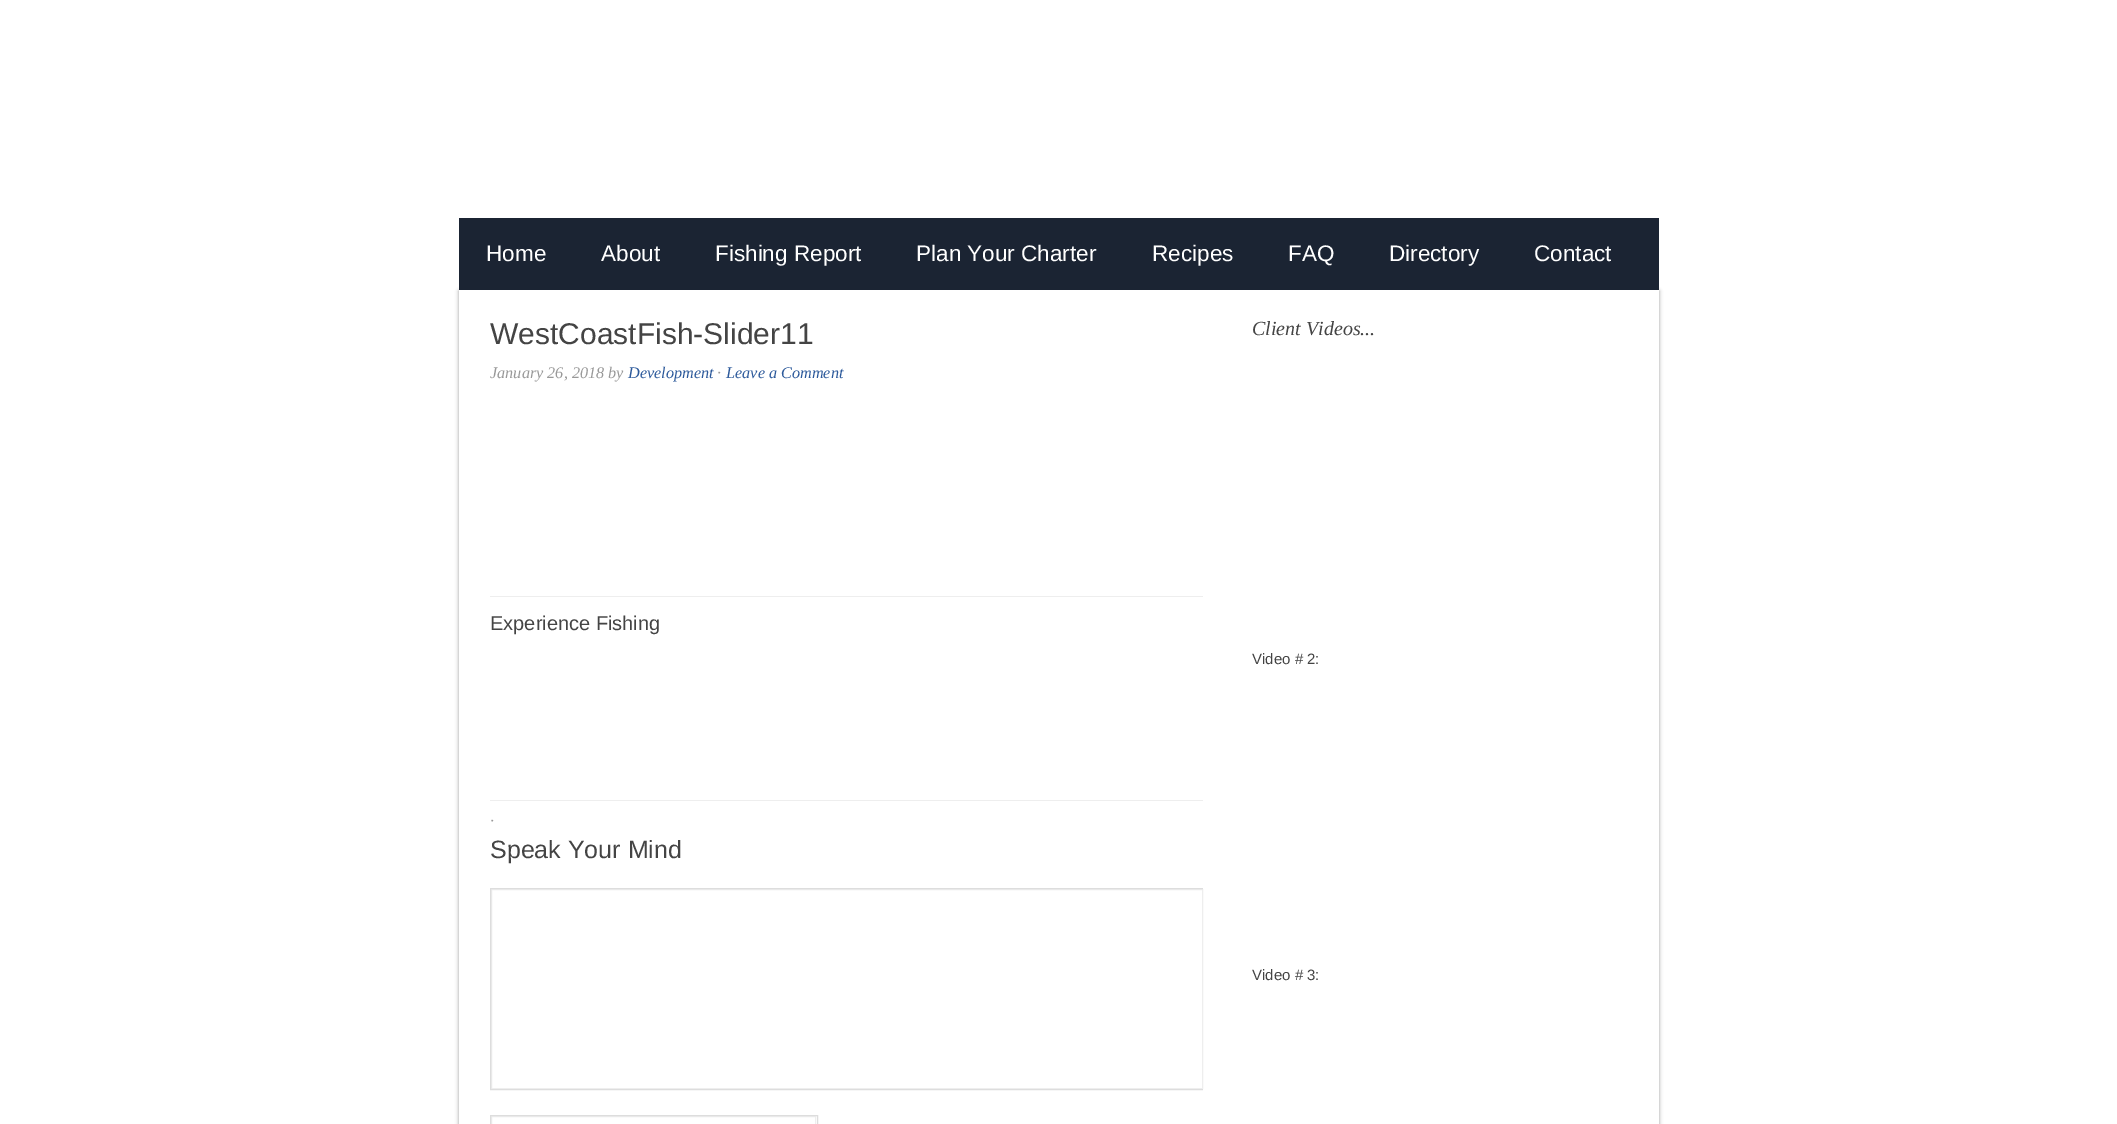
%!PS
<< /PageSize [2117 1124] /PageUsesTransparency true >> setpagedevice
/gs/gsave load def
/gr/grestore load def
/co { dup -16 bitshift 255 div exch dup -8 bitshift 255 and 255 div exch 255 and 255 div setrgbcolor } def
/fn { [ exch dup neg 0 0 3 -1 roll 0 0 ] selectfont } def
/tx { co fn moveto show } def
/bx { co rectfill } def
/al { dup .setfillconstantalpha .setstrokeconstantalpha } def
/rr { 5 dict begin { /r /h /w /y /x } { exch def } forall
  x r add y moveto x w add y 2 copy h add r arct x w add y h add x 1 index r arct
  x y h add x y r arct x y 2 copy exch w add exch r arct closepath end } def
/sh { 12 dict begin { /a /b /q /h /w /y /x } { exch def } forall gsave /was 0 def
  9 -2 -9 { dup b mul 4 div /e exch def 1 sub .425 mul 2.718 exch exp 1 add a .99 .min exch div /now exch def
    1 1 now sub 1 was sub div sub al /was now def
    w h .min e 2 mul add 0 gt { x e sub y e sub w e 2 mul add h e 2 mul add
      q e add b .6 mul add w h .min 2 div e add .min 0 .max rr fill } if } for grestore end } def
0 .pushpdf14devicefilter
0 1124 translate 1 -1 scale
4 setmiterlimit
0 0 2117 1124 16#FFFFFF bx
16#999999 co
459 291 1200 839 0 2 1 sh
459 218 1200 72 16#1B2433 bx
459 290 1200 834 16#FFFFFF bx
490 596 713 1 16#EEEEEE bx
490 800 713 1 16#EEEEEE bx
491.5 889.5 711 199 rectstroke
gs
490 835 713 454 rectclip
16#DDDDDD co
490.5 888.5 713 201 rectstroke
gr
491.5 1116.5 324 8 rectstroke
16#DDDDDD co
490.5 1115.5 327 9 rectstroke
(Home) 486 261 /LiberationSans-Regular 22.5 16#FFFFFF tx
(About) 601 261 /LiberationSans-Regular 22.5 16#FFFFFF tx
(Fishing Report) 715 261 /LiberationSans-Regular 22.5 16#FFFFFF tx
(Plan Your Charter) 916 261 /LiberationSans-Regular 22.5 16#FFFFFF tx
(Recipes) 1152 261 /LiberationSans-Regular 22.5 16#FFFFFF tx
(FAQ) 1288 261 /LiberationSans-Regular 22.5 16#FFFFFF tx
(Directory) 1389 261 /LiberationSans-Regular 22.5 16#FFFFFF tx
(Contact) 1534 261 /LiberationSans-Regular 22.5 16#FFFFFF tx
(WestCoastFish-Slider11) 490 344 /LiberationSans-Regular 30 16#444444 tx
(January 26, 2018 by) 490 378 /LiberationSerif-Italic 16.25 16#999999 tx
(Development) 628 378 /LiberationSerif-Italic 16.25 16#2D5A9B tx
(·) 717 378 /LiberationSerif-Italic 16.25 16#999999 tx
(Leave a Comment) 726 378 /LiberationSerif-Italic 16.25 16#2D5A9B tx
(Experience Fishing) 490 630 /LiberationSans-Regular 20 16#444444 tx
(·) 490 826 /LiberationSerif-Italic 16.25 16#999999 tx
(Speak Your Mind) 490 858 /LiberationSans-Regular 25 16#444444 tx
(Client Videos...) 1252 335 /LiberationSerif-Italic 20 16#444444 tx
(Video # 2:) 1252 664 /LiberationSans-Regular 15 16#444444 tx
(Video # 3:) 1252 980 /LiberationSans-Regular 15 16#444444 tx
.poppdf14devicefilter showpage
